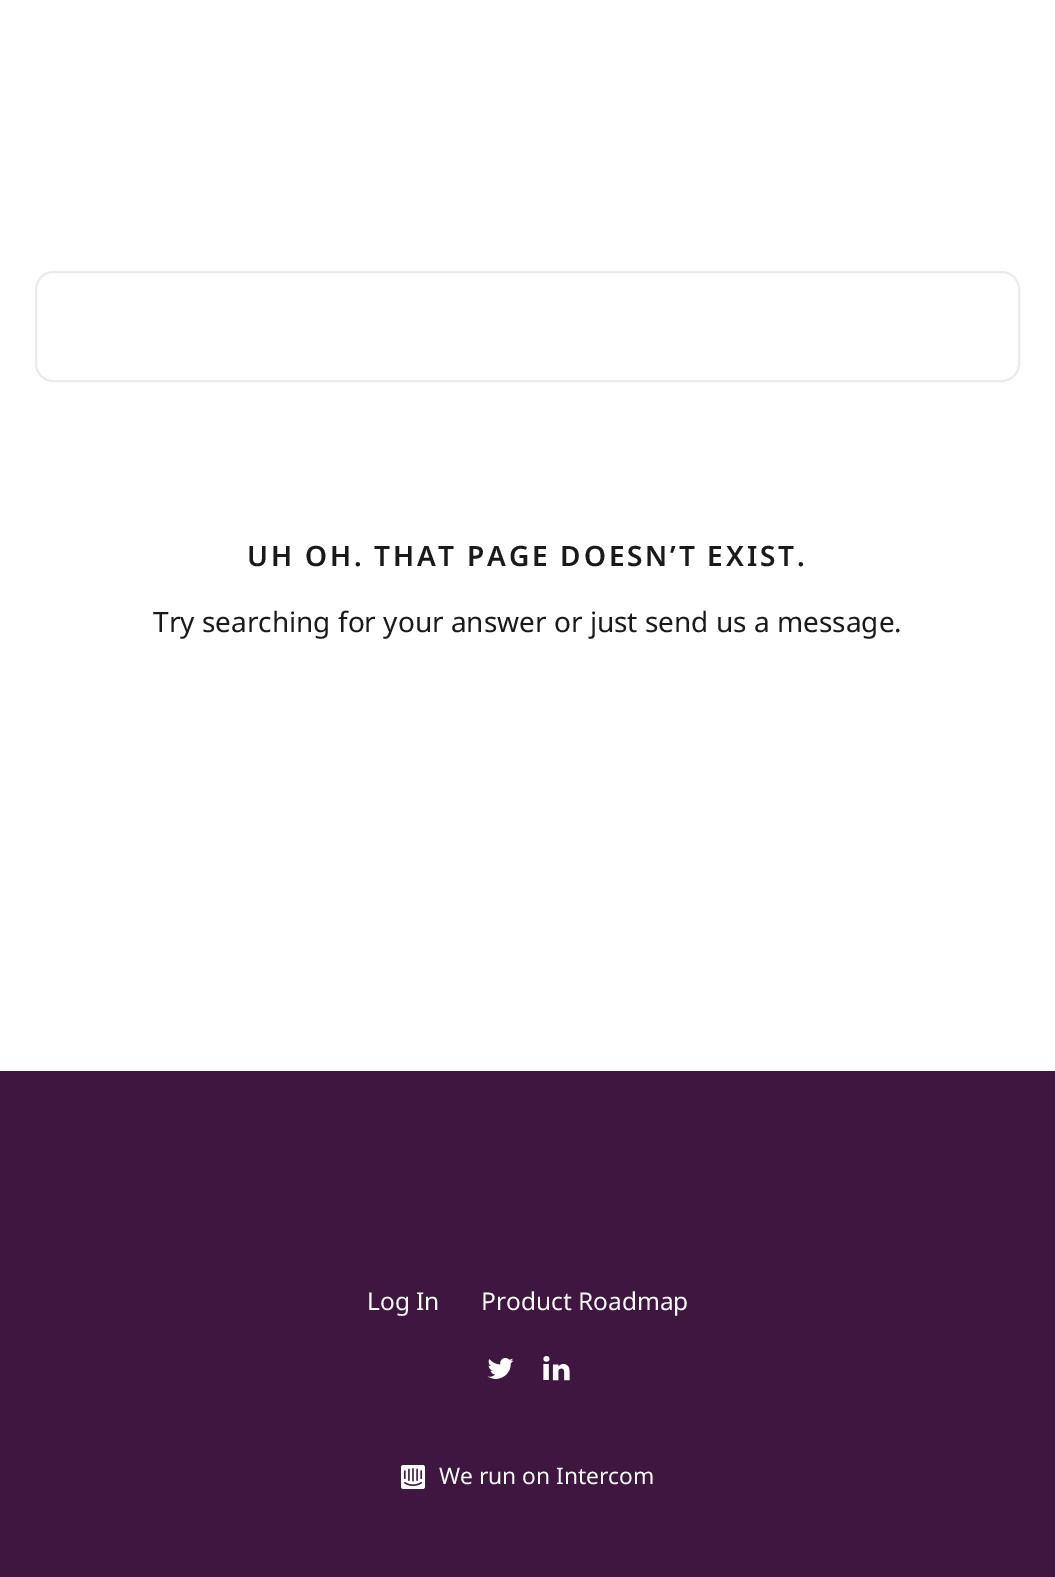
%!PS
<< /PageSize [1055 1577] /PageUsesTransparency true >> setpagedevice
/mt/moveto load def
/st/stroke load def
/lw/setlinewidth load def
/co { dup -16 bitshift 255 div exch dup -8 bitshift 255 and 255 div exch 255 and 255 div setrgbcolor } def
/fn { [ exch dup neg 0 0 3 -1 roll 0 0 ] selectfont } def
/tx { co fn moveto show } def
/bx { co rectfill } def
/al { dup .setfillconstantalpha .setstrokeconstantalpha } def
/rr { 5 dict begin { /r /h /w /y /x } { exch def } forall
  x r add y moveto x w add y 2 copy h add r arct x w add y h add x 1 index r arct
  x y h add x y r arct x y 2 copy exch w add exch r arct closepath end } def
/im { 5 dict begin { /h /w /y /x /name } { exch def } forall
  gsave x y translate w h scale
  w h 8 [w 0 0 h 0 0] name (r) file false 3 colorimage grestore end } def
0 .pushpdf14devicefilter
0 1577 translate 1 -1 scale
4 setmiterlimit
0 0 1055 1577 16#FFFFFF bx
0.08 al
16#000000 co
2 lw
36 272 983 109 17 rr st
1 al
0 1071 1055 506 16#3E163F bx
(media/1.raw) 487 1358 27 21 im
(media/2.raw) 543 1356 27 25 im
(media/3.raw) 401 1465 24 24 im
/NotoSans-SemiBold 28 fn
16#1A1A1A co
247 566 mt 2.8 0 (UH OH. THAT PAGE DOESN’T EXIST.) ashow
(Try searching for your answer or just send us a message.) 153 632 /NotoSans-Regular 28 16#1A1A1A tx
(Log In) 367 1310 /NotoSans-Regular 24.5 16#FFFFFF tx
(Product Roadmap) 481 1310 /NotoSans-Regular 24.5 16#FFFFFF tx
(We run on Intercom) 439 1484 /NotoSans-Regular 22.75 16#FFFFFF tx
.poppdf14devicefilter showpage
